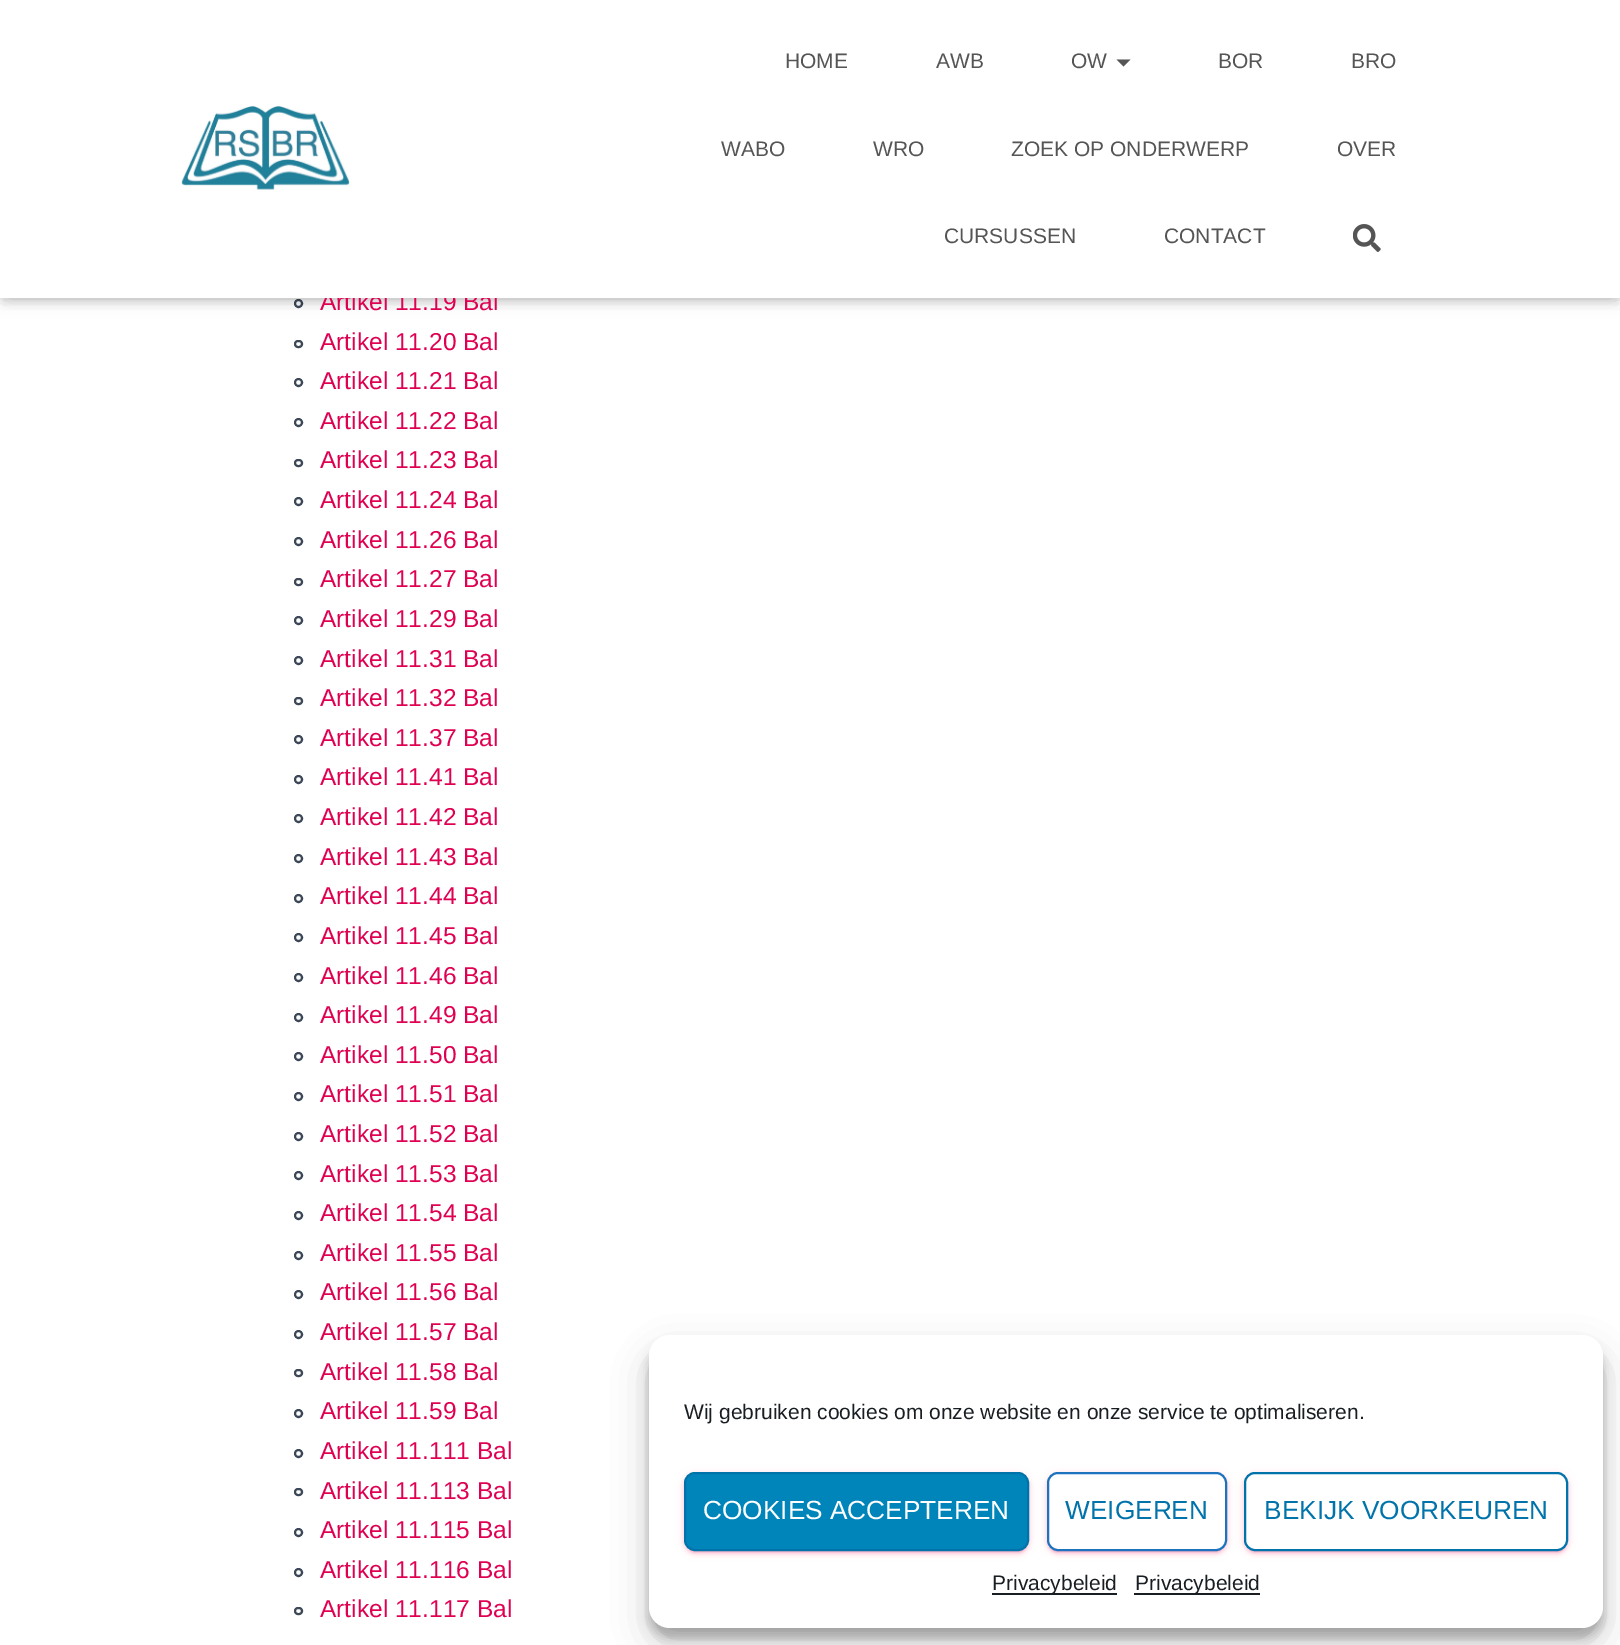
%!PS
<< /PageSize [1620 1645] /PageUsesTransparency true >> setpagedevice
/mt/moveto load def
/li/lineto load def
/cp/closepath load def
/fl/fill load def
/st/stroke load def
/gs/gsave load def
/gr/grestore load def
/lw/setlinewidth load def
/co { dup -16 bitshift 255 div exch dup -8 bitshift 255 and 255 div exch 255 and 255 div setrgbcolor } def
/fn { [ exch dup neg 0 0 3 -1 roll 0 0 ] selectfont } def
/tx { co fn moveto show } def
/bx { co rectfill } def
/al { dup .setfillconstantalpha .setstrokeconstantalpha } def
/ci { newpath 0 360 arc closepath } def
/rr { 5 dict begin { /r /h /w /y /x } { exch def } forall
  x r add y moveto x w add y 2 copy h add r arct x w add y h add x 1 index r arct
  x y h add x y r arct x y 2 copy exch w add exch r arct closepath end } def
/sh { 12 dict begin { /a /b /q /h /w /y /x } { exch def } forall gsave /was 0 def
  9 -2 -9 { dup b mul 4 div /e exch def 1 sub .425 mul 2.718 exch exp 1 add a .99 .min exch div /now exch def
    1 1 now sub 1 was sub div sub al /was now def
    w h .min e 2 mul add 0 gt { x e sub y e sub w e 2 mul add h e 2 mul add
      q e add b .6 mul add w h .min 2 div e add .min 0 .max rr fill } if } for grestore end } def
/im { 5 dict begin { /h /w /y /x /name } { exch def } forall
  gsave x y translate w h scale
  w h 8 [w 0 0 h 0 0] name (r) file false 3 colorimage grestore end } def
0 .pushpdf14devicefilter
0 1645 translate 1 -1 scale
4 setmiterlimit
0 0 1620 1645 16#FFFFFF bx
16#3C4858 co
2 lw
298.5 303.5 3.5 ci st
16#000000 co
4 11 1613 290 0 4.5 .1 sh
0 2 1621 297 0 9 .12 sh
11 12 1599 277 0 9 .42 sh
16#3C4858 co
295 341 7 6 3 rr st
298.5 382.5 3.5 ci st
298.5 422.5 3.5 ci st
295 460 7 6 3 rr st
298.5 501.5 3.5 ci st
298.5 541.5 3.5 ci st
295 579 7 6 3 rr st
298.5 620.5 3.5 ci st
298.5 660.5 3.5 ci st
295 698 7 6 3 rr st
298.5 739.5 3.5 ci st
298.5 779.5 3.5 ci st
298.5 818.5 3.5 ci st
298.5 858.5 3.5 ci st
298.5 898.5 3.5 ci st
298.5 937.5 3.5 ci st
298.5 977.5 3.5 ci st
298.5 1017.5 3.5 ci st
298.5 1056.5 3.5 ci st
298.5 1096.5 3.5 ci st
298.5 1136.5 3.5 ci st
298.5 1175.5 3.5 ci st
298.5 1215.5 3.5 ci st
298.5 1255.5 3.5 ci st
298.5 1294.5 3.5 ci st
298.5 1334.5 3.5 ci st
295 1370 7 6 3 rr st
298.5 1413.5 3.5 ci st
298.5 1453.5 3.5 ci st
295 1489 7 6 3 rr st
298.5 1532.5 3.5 ci st
298.5 1572.5 3.5 ci st
295 1608 7 6 3 rr st
16#000000 co
649 1346 954 292 21 5 .23 sh
649 1353 954 292 21 17.5 .19 sh
16#FFFFFF co
649 1335 954 293 21 rr fl
16#E00052 co
684 1474 345 78 11 4.5 .12 sh
688 1481 338 71 7 1 .2 sh
684 1475 345 79 11 2 .14 sh
16#0085BA co
685 1473 343 77 10 rr gs fl gr
16#0073AA co
st
16#E00052 co
1047 1474 180 78 11 4.5 .12 sh
1050 1481 173 71 7 1 .2 sh
1047 1475 180 79 11 2 .14 sh
16#FFFFFF co
1048 1473 178 77 10 rr gs fl gr
16#1E73BE co
st
16#E00052 co
1244 1474 324 78 11 4.5 .12 sh
1248 1481 317 71 7 1 .2 sh
1244 1475 324 79 11 2 .14 sh
16#FFFFFF co
1245 1473 322 77 10 rr gs fl gr
16#0073AA co
st
992 1593 125 2 16#191E23 bx
1134 1593 126 2 16#191E23 bx
(Artikel 11.19 Bal) 320 310 /LiberationSans-Regular 24.5 16#E00052 tx
0 0 1620 298 16#FFFFFF bx
(media/2.raw) 1353 224 28 28 im
(CONTACT) 1164 243 /LiberationSans-Regular 21 16#555555 tx
(CURSUSSEN) 944 243 /LiberationSans-Regular 21 16#555555 tx
(OVER) 1337 156 /LiberationSans-Regular 21 16#555555 tx
(ZOEK OP ONDERWERP) 1011 156 /LiberationSans-Regular 21 16#555555 tx
(WRO) 873 156 /LiberationSans-Regular 21 16#555555 tx
(WABO) 721 156 /LiberationSans-Regular 21 16#555555 tx
(BRO) 1351 68 /LiberationSans-Regular 21 16#555555 tx
(BOR) 1218 68 /LiberationSans-Regular 21 16#555555 tx
1116.5 59.5 mt 1130.5 59.5 li 1123.5 66.5 li cp fl
(OW) 1071 68 /LiberationSans-Regular 21 16#555555 tx
(AWB) 936 68 /LiberationSans-Regular 21 16#555555 tx
(HOME) 785 68 /LiberationSans-Regular 21 16#555555 tx
(media/1.raw) 181 106 169 84 im
(Artikel 11.20 Bal) 320 350 /LiberationSans-Regular 24.5 16#E00052 tx
(Artikel 11.21 Bal) 320 389 /LiberationSans-Regular 24.5 16#E00052 tx
(Artikel 11.22 Bal) 320 429 /LiberationSans-Regular 24.5 16#E00052 tx
(Artikel 11.23 Bal) 320 468 /LiberationSans-Regular 24.5 16#E00052 tx
(Artikel 11.24 Bal) 320 508 /LiberationSans-Regular 24.5 16#E00052 tx
(Artikel 11.26 Bal) 320 548 /LiberationSans-Regular 24.5 16#E00052 tx
(Artikel 11.27 Bal) 320 587 /LiberationSans-Regular 24.5 16#E00052 tx
(Artikel 11.29 Bal) 320 627 /LiberationSans-Regular 24.5 16#E00052 tx
(Artikel 11.31 Bal) 320 667 /LiberationSans-Regular 24.5 16#E00052 tx
(Artikel 11.32 Bal) 320 706 /LiberationSans-Regular 24.5 16#E00052 tx
(Artikel 11.37 Bal) 320 746 /LiberationSans-Regular 24.5 16#E00052 tx
(Artikel 11.41 Bal) 320 785 /LiberationSans-Regular 24.5 16#E00052 tx
(Artikel 11.42 Bal) 320 825 /LiberationSans-Regular 24.5 16#E00052 tx
(Artikel 11.43 Bal) 320 865 /LiberationSans-Regular 24.5 16#E00052 tx
(Artikel 11.44 Bal) 320 904 /LiberationSans-Regular 24.5 16#E00052 tx
(Artikel 11.45 Bal) 320 944 /LiberationSans-Regular 24.5 16#E00052 tx
(Artikel 11.46 Bal) 320 984 /LiberationSans-Regular 24.5 16#E00052 tx
(Artikel 11.49 Bal) 320 1023 /LiberationSans-Regular 24.5 16#E00052 tx
(Artikel 11.50 Bal) 320 1063 /LiberationSans-Regular 24.5 16#E00052 tx
(Artikel 11.51 Bal) 320 1102 /LiberationSans-Regular 24.5 16#E00052 tx
(Artikel 11.52 Bal) 320 1142 /LiberationSans-Regular 24.5 16#E00052 tx
(Artikel 11.53 Bal) 320 1182 /LiberationSans-Regular 24.5 16#E00052 tx
(Artikel 11.54 Bal) 320 1221 /LiberationSans-Regular 24.5 16#E00052 tx
(Artikel 11.55 Bal) 320 1261 /LiberationSans-Regular 24.5 16#E00052 tx
(Artikel 11.56 Bal) 320 1300 /LiberationSans-Regular 24.5 16#E00052 tx
(Artikel 11.57 Bal) 320 1340 /LiberationSans-Regular 24.5 16#E00052 tx
(Artikel 11.58 Bal) 320 1380 /LiberationSans-Regular 24.5 16#E00052 tx
(Artikel 11.59 Bal) 320 1419 /LiberationSans-Regular 24.5 16#E00052 tx
(Artikel 11.111 Bal) 320 1459 /LiberationSans-Regular 24.5 16#E00052 tx
(Artikel 11.113 Bal) 320 1499 /LiberationSans-Regular 24.5 16#E00052 tx
(Artikel 11.115 Bal) 320 1538 /LiberationSans-Regular 24.5 16#E00052 tx
(Artikel 11.116 Bal) 320 1578 /LiberationSans-Regular 24.5 16#E00052 tx
(Artikel 11.117 Bal) 320 1617 /LiberationSans-Regular 24.5 16#E00052 tx
(Wij gebruiken cookies om onze website en onze service te optimaliseren.) 684 1419 /LiberationSans-Regular 21 16#191E23 tx
(COOKIES ACCEPTEREN) 703 1519 /LiberationSans-Regular 26.25 16#FFFFFF tx
(WEIGEREN) 1065 1519 /LiberationSans-Regular 26.25 16#0073AA tx
(BEKIJK VOORKEUREN) 1264 1519 /LiberationSans-Regular 26.25 16#0073AA tx
(Privacybeleid) 992 1590 /LiberationSans-Regular 21 16#191E23 tx
(Privacybeleid) 1135 1590 /LiberationSans-Regular 21 16#191E23 tx
.poppdf14devicefilter showpage
